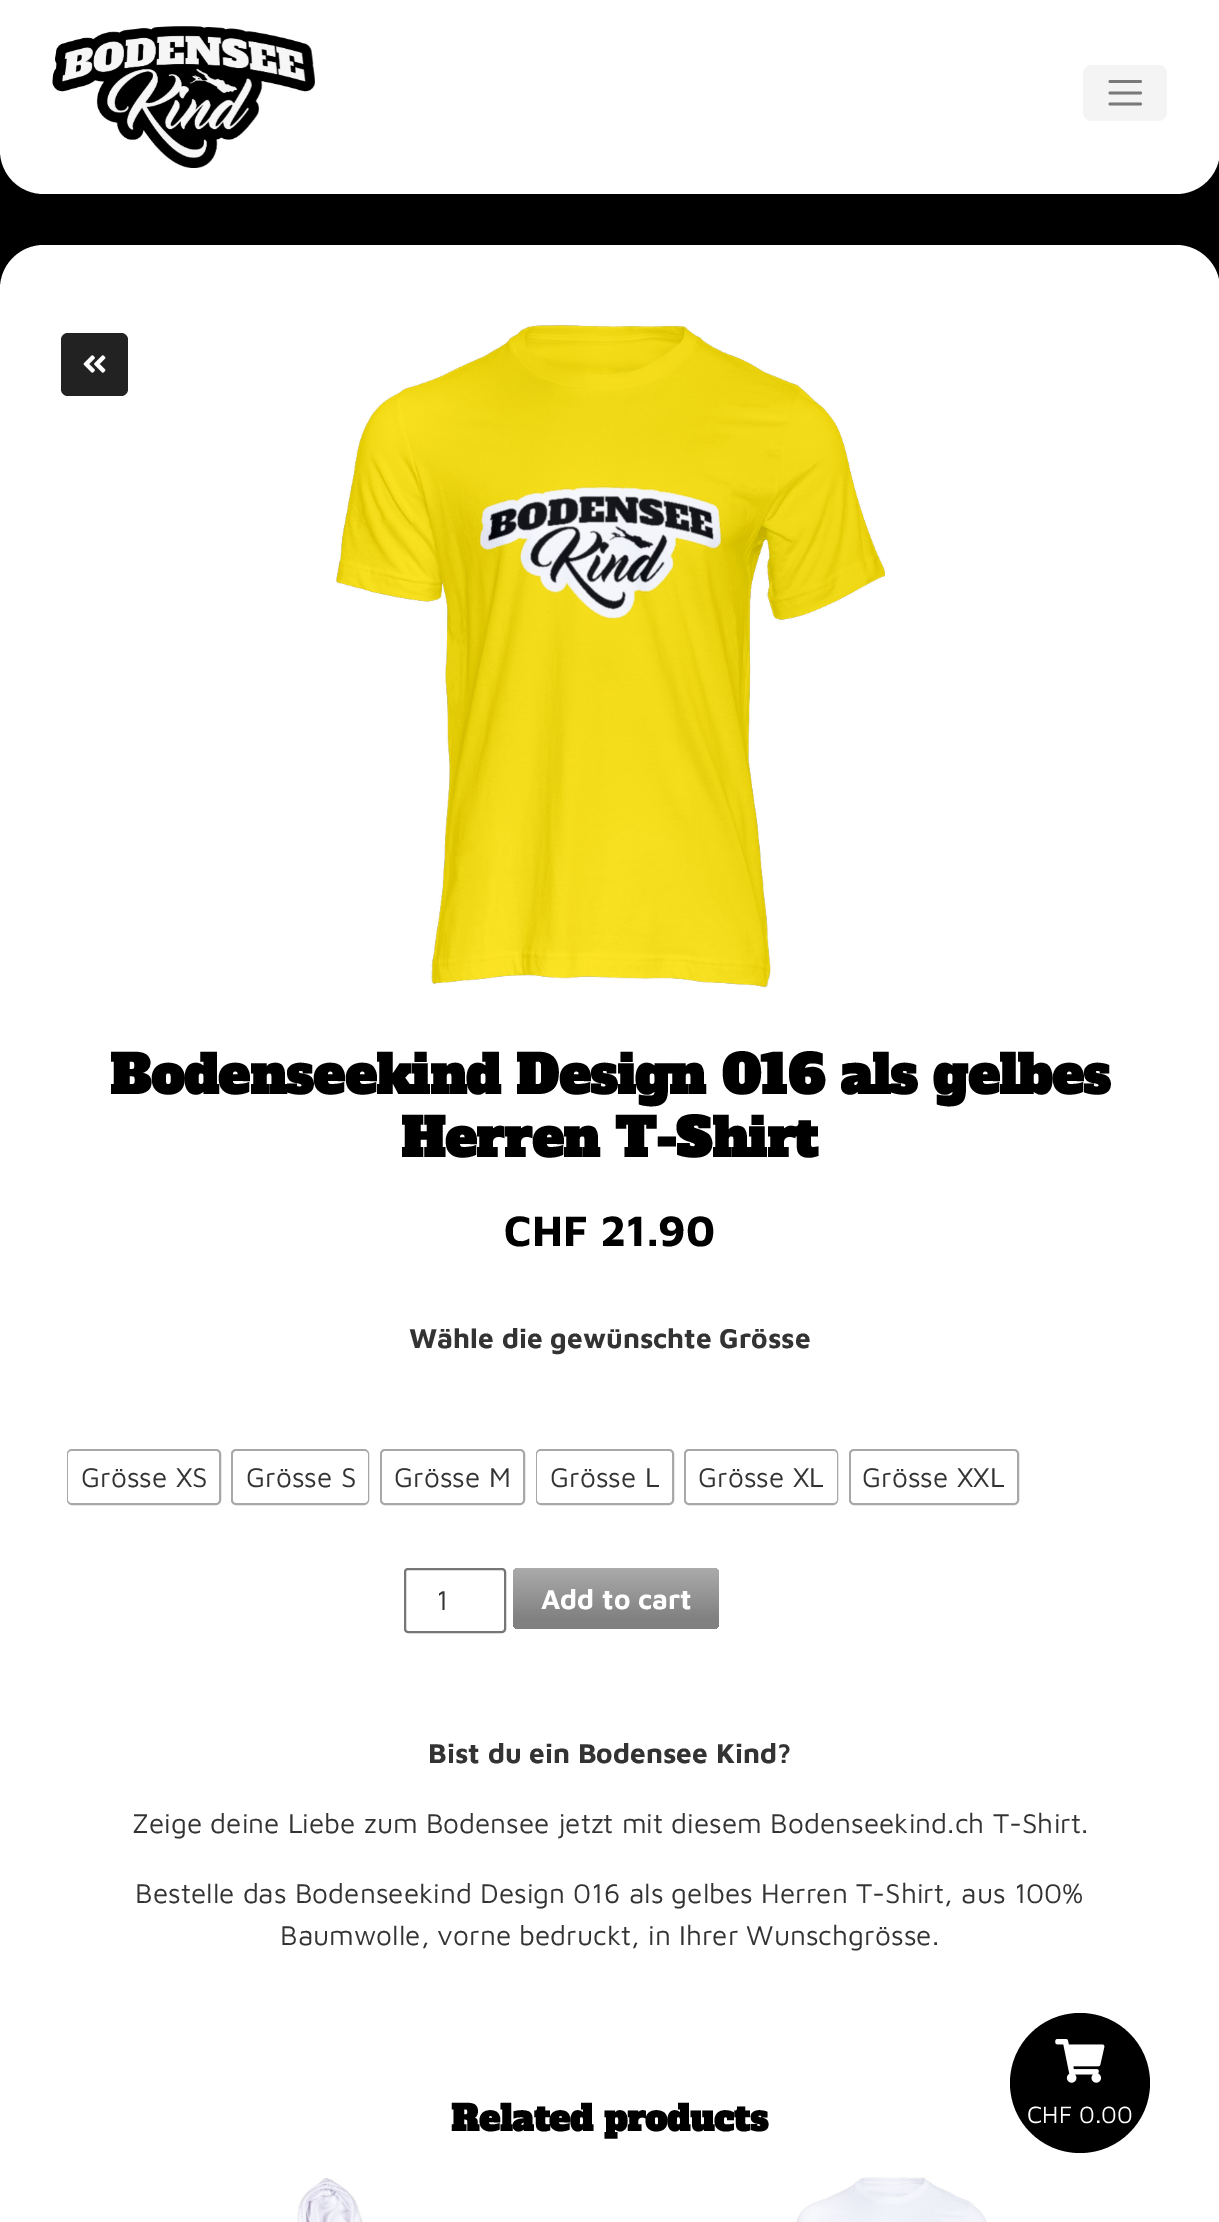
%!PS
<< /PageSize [1219 2222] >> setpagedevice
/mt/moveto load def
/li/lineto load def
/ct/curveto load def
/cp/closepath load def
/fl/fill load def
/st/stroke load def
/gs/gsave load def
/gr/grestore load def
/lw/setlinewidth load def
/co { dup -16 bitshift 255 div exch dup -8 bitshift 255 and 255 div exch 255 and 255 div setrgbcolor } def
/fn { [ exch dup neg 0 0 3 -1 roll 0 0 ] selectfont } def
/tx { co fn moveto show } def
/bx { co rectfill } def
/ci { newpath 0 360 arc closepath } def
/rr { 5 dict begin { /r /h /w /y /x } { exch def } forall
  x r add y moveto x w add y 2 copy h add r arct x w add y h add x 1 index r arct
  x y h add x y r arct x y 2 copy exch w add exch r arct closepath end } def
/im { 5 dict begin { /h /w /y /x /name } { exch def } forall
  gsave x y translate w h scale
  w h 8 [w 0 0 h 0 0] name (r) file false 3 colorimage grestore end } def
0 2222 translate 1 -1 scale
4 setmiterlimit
0 0 1219 2222 16#000000 bx
16#FFFFFF co
0 0 mt 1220 0 li 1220 150 li 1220 174.5 1200.5 194 1176 194 ct 44 194 li 19.5 194 0 174.5 0 150 ct cp fl
(media/1.raw) 52 26 263 142 im
16#F4F4F4 co
1083 65 84 56 9 rr fl
16#7A7A7A co
2.8 lw
1 setlinecap
1110 81.5 mt 1140.5 81.5 li 1110 93 mt 1140.5 93 li 1110 104 mt 1140.5 104 li st
16#FFFFFF co
0 245 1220 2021 44 rr fl
16#222222 co
61 333 67 63 7 rr fl
(media/2.raw) 83 355 23 18 im
(media/3.raw) 336 324 551 664 im
16#A8A8A8 co
2 lw
0 setlinecap
68 1450 152 54 4 rr st
16#FFFFFF co
68 1451 151 52 4 rr fl
16#A8A8A8 co
232 1450 136 54 4 rr st
16#FFFFFF co
233 1451 135 52 4 rr fl
16#A8A8A8 co
381 1450 143 54 4 rr st
16#FFFFFF co
382 1451 141 52 4 rr fl
16#A8A8A8 co
537 1450 136 54 4 rr st
16#FFFFFF co
537 1451 135 52 4 rr fl
16#A8A8A8 co
685 1450 152 54 4 rr st
16#FFFFFF co
686 1451 151 52 4 rr fl
16#A8A8A8 co
850 1450 168 54 4 rr st
16#FFFFFF co
851 1451 166 52 4 rr fl
16#767676 co
405 1569 100 63 3 rr st
gs 513 1568 206 61 5 rr clip newpath
<< /ShadingType 2 /ColorSpace /DeviceRGB /Coords [616 1629 616 1568] /Extend [true true] /Function << /FunctionType 3 /Domain [0 1] /Functions [<< /FunctionType 2 /Domain [0 1] /C0 [.502 .502 .502] /C1 [.502 .502 .502] /N 1 >> << /FunctionType 2 /Domain [0 1] /C0 [.502 .502 .502] /C1 [.671 .671 .671] /N 1 >>] /Bounds [.15] /Encode [0 1 0 1] >> >> shfill gr
(media/4.raw) 297 2178 66 44 im
(media/5.raw) 796 2177 191 45 im
16#000000 co
1080 2083 70 ci fl
(media/6.raw) 1055 2039 50 44 im
(Bodenseekind Design 016 als gelbes) 110 1094 /AlfaSlabOne-Bold 52.5 16#000000 tx
(Herren T-Shirt) 401 1157 /AlfaSlabOne-Bold 52.5 16#000000 tx
(CHF 21.90) 504 1246 /MavenPro-Bold 43.75 16#000000 tx
(Wähle die gewünschte Grösse) 409 1348 /MavenPro-Bold 28 16#333333 tx
(Grösse XS) 81 1487 /MavenPro-Regular 28 16#333333 tx
(Grösse S) 246 1487 /MavenPro-Regular 28 16#333333 tx
(Grösse M) 394 1487 /MavenPro-Regular 28 16#333333 tx
(Grösse L) 550 1487 /MavenPro-Regular 28 16#333333 tx
(Grösse XL) 698 1487 /MavenPro-Regular 28 16#333333 tx
(Grösse XXL) 862 1487 /MavenPro-Regular 28 16#333333 tx
(1) 436 1610 /MavenPro-Regular 28 16#333333 tx
(Add to cart) 541 1609 /MavenPro-Bold 28 16#FFFFFF tx
(Bist du ein Bodensee Kind?) 428 1763 /MavenPro-Bold 28 16#333333 tx
(Zeige deine Liebe zum Bodensee jetzt mit diesem Bodenseekind.ch T-Shirt.) 132 1833 /MavenPro-Regular 28 16#333333 tx
(Bestelle das Bodenseekind Design 016 als gelbes Herren T-Shirt, aus 100%) 135 1903 /MavenPro-Regular 28 16#333333 tx
(Baumwolle, vorne bedruckt, in Ihrer Wunschgrösse.) 280 1945 /MavenPro-Regular 28 16#333333 tx
(Related products) 451 2131 /AlfaSlabOne-Bold 35 16#000000 tx
(CHF 0.00) 1027 2123 /MavenPro-Regular 24.5 16#FFFFFF tx
showpage
